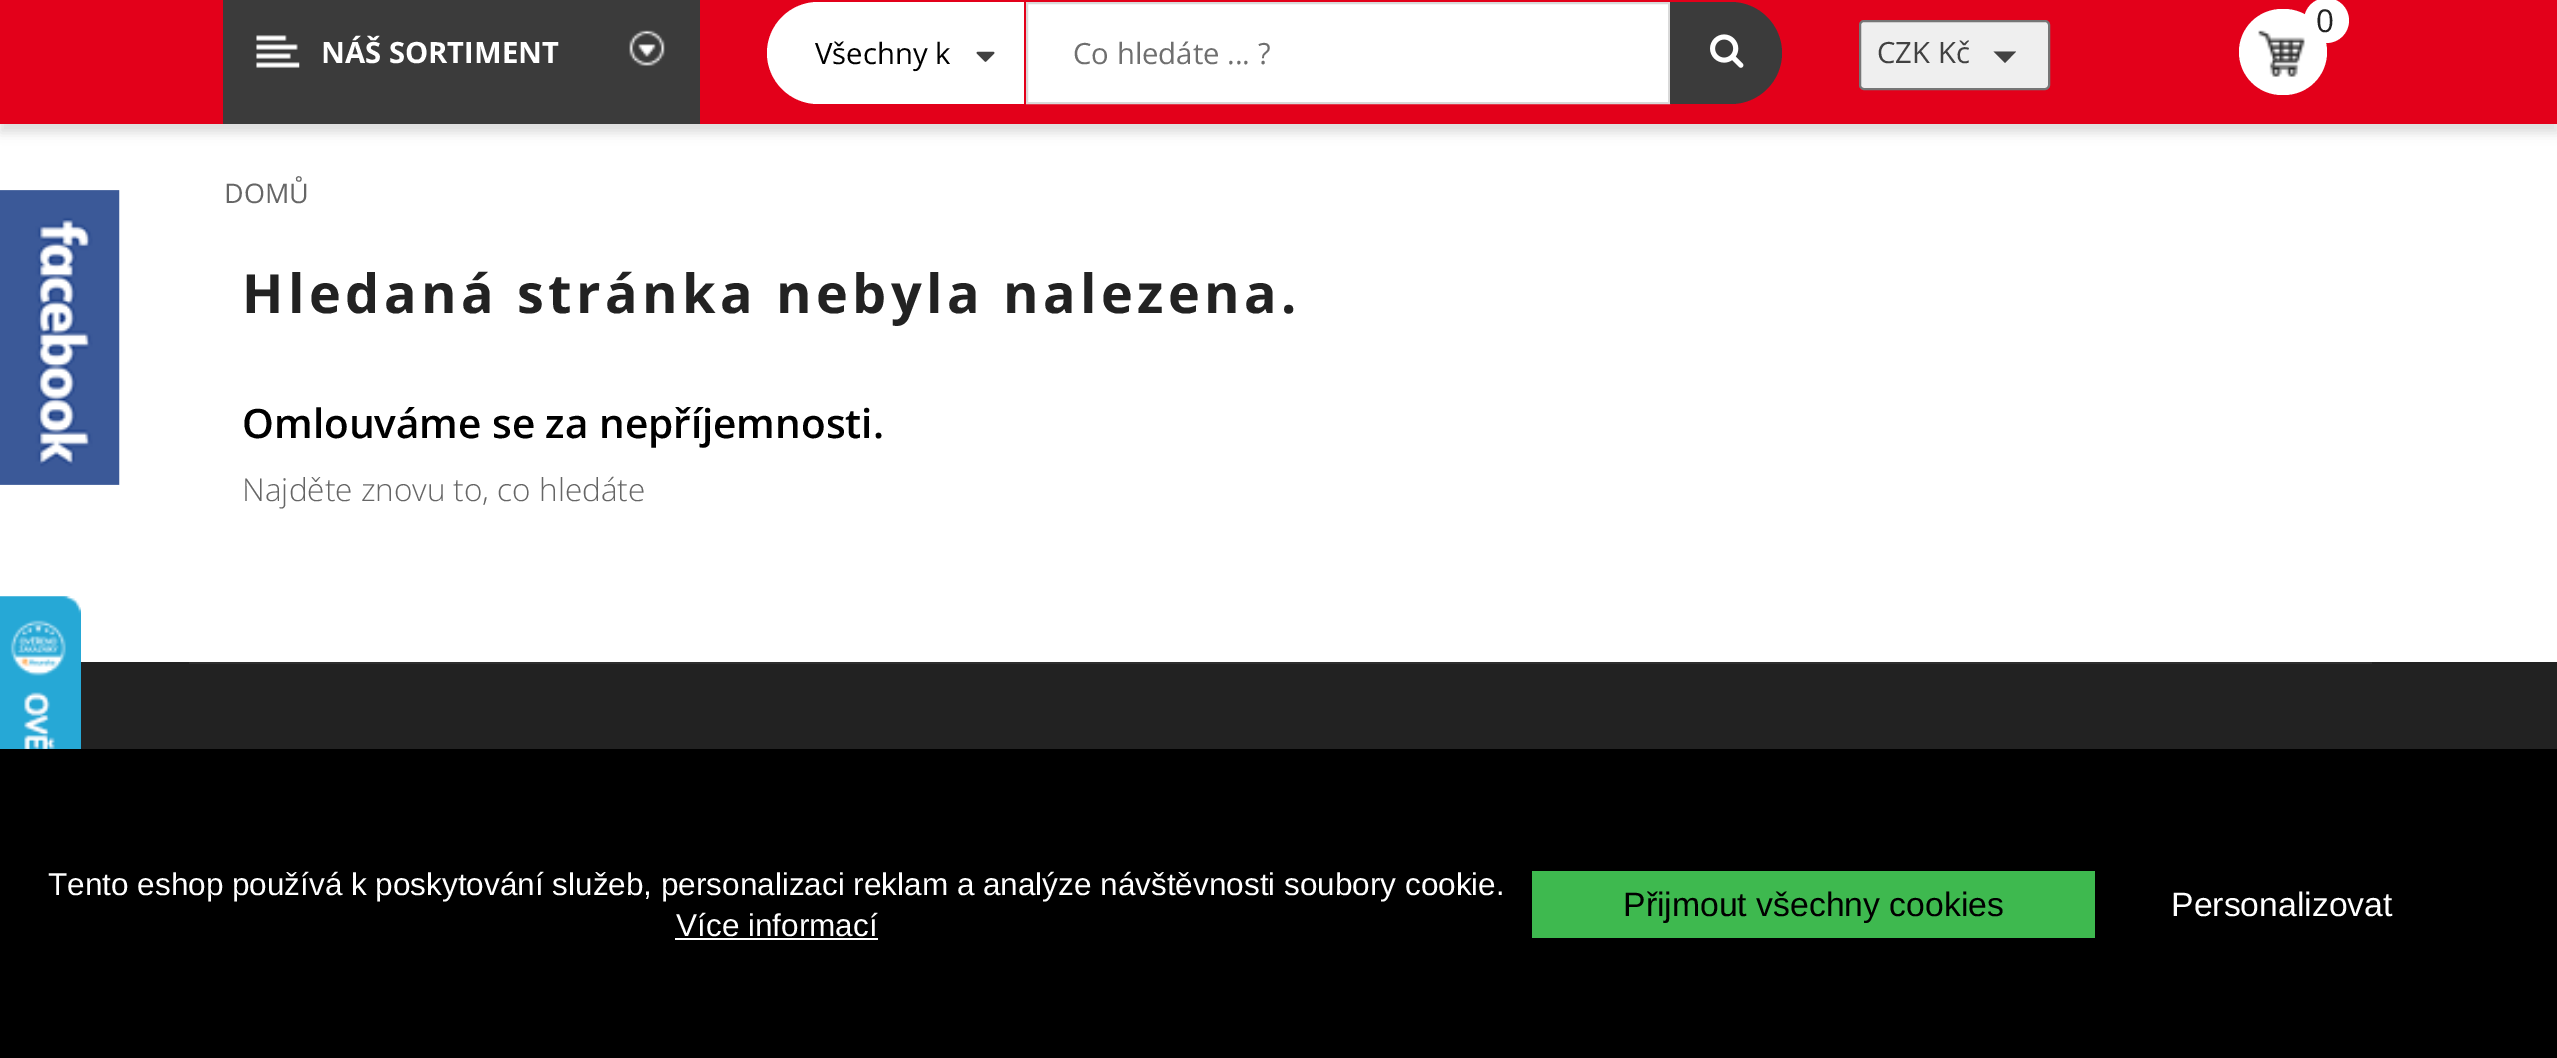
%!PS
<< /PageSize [2557 1058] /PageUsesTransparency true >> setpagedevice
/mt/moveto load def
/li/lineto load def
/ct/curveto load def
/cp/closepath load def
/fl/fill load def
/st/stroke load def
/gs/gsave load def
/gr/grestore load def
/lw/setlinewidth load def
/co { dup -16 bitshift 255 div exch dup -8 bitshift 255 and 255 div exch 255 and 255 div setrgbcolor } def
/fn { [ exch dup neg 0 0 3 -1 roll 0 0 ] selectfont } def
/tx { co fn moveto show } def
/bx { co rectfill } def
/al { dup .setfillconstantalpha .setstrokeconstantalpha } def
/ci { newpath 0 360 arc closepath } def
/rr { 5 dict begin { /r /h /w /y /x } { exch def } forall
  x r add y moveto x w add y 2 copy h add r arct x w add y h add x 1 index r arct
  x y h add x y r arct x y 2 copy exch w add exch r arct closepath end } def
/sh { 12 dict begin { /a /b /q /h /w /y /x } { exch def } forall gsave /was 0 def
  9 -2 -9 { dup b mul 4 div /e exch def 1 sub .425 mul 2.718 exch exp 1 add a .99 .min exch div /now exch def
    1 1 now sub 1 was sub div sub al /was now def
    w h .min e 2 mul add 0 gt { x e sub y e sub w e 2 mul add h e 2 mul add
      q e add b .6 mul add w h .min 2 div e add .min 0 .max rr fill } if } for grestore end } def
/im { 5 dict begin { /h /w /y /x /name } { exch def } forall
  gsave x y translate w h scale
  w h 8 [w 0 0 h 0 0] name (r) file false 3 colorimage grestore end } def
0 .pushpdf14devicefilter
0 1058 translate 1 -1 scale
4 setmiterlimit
0 0 2557 1058 16#FFFFFF bx
16#DDDDDD co
0 -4 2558 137 0 5.5 1 sh
0 0 2557 124 16#E3001A bx
223 0 477 124 16#3B3B3B bx
(media/1.raw) 256 35 44 33 im
(media/2.raw) 629 30 36 36 im
16#FFFFFF co
818 2 mt 1024 2 li 1024 104 li 818 104 li 790 104 767 81 767 53 ct 767 25 790 2 818 2 ct cp fl
(media/3.raw) 976 51 19 11 im
1027 3 mt 1669 3 li 1669 103 li 1027 103 li cp gs fl gr
16#D9D9D9 co
2 lw
st
16#3B3B3B co
1670 2 mt 1731 2 li 1759 2 1782 25 1782 53 ct 1782 81 1759 104 1731 104 ct 1670 104 li cp fl
(media/4.raw) 1710 34 34 34 im
16#FFFFFF co
2239 9 88 86 43 rr fl
(media/5.raw) 2258 30 47 47 im
2326.5 20.5 22.5 ci fl
16#EFEFEF co
1860 21 189 68 4 rr gs fl gr
16#767676 co
st
16#414141 co
1993.5 51.5 mt 2016 51.5 li 2005 63 li cp fl
(media/6.raw) 0 190 120 295 im
81 662 2476 87 16#222222 bx
189 662 2183 2 16#2E2E2E bx
(media/7.raw) 0 596 81 153 im
0 749 2557 309 16#000000 bx
675 938 203 2 16#FFFFFF bx
1532 871 563 67 16#3EB94F bx
(NÁŠ SORTIMENT) 321 63 /OpenSans-Bold 29.25 16#FFFFFF tx
(Všechny k) 815 64 /OpenSans-Regular 29.25 16#000000 tx
(Co hledáte ... ?) 1073 64 /OpenSans-Regular 29.25 16#6F6F6F tx
(0) 2316 32 /OpenSans-Regular 31.5 16#222222 tx
(CZK Kč) 1877 63 /OpenSans-Regular 29.25 16#414141 tx
(DOMŮ) 224 203 /OpenSans-Regular 27 16#666666 tx
/OpenSans-Bold 54 fn
16#222222 co
242 313 mt 4.5 0 (Hledaná stránka nebyla nalezena.) ashow
(Omlouváme se za nepříjemnosti.) 242 438 /OpenSans-SemiBold 40.5 16#000000 tx
(Najděte znovu to, co hledáte) 242 501 /OpenSans-Light 31.5 16#666666 tx
(Tento eshop používá k poskytování služeb, personalizaci reklam a analýze návštěvnosti soubory cookie.) 48 895 /LiberationSans-Regular 31.5 16#FFFFFF tx
(Více informací) 676 936 /LiberationSans-Regular 31.5 16#FFFFFF tx
(Přijmout všechny cookies) 1623 916 /LiberationSans-Regular 33.75 16#000000 tx
(Personalizovat) 2171 916 /LiberationSans-Regular 33.75 16#FFFFFF tx
.poppdf14devicefilter showpage
